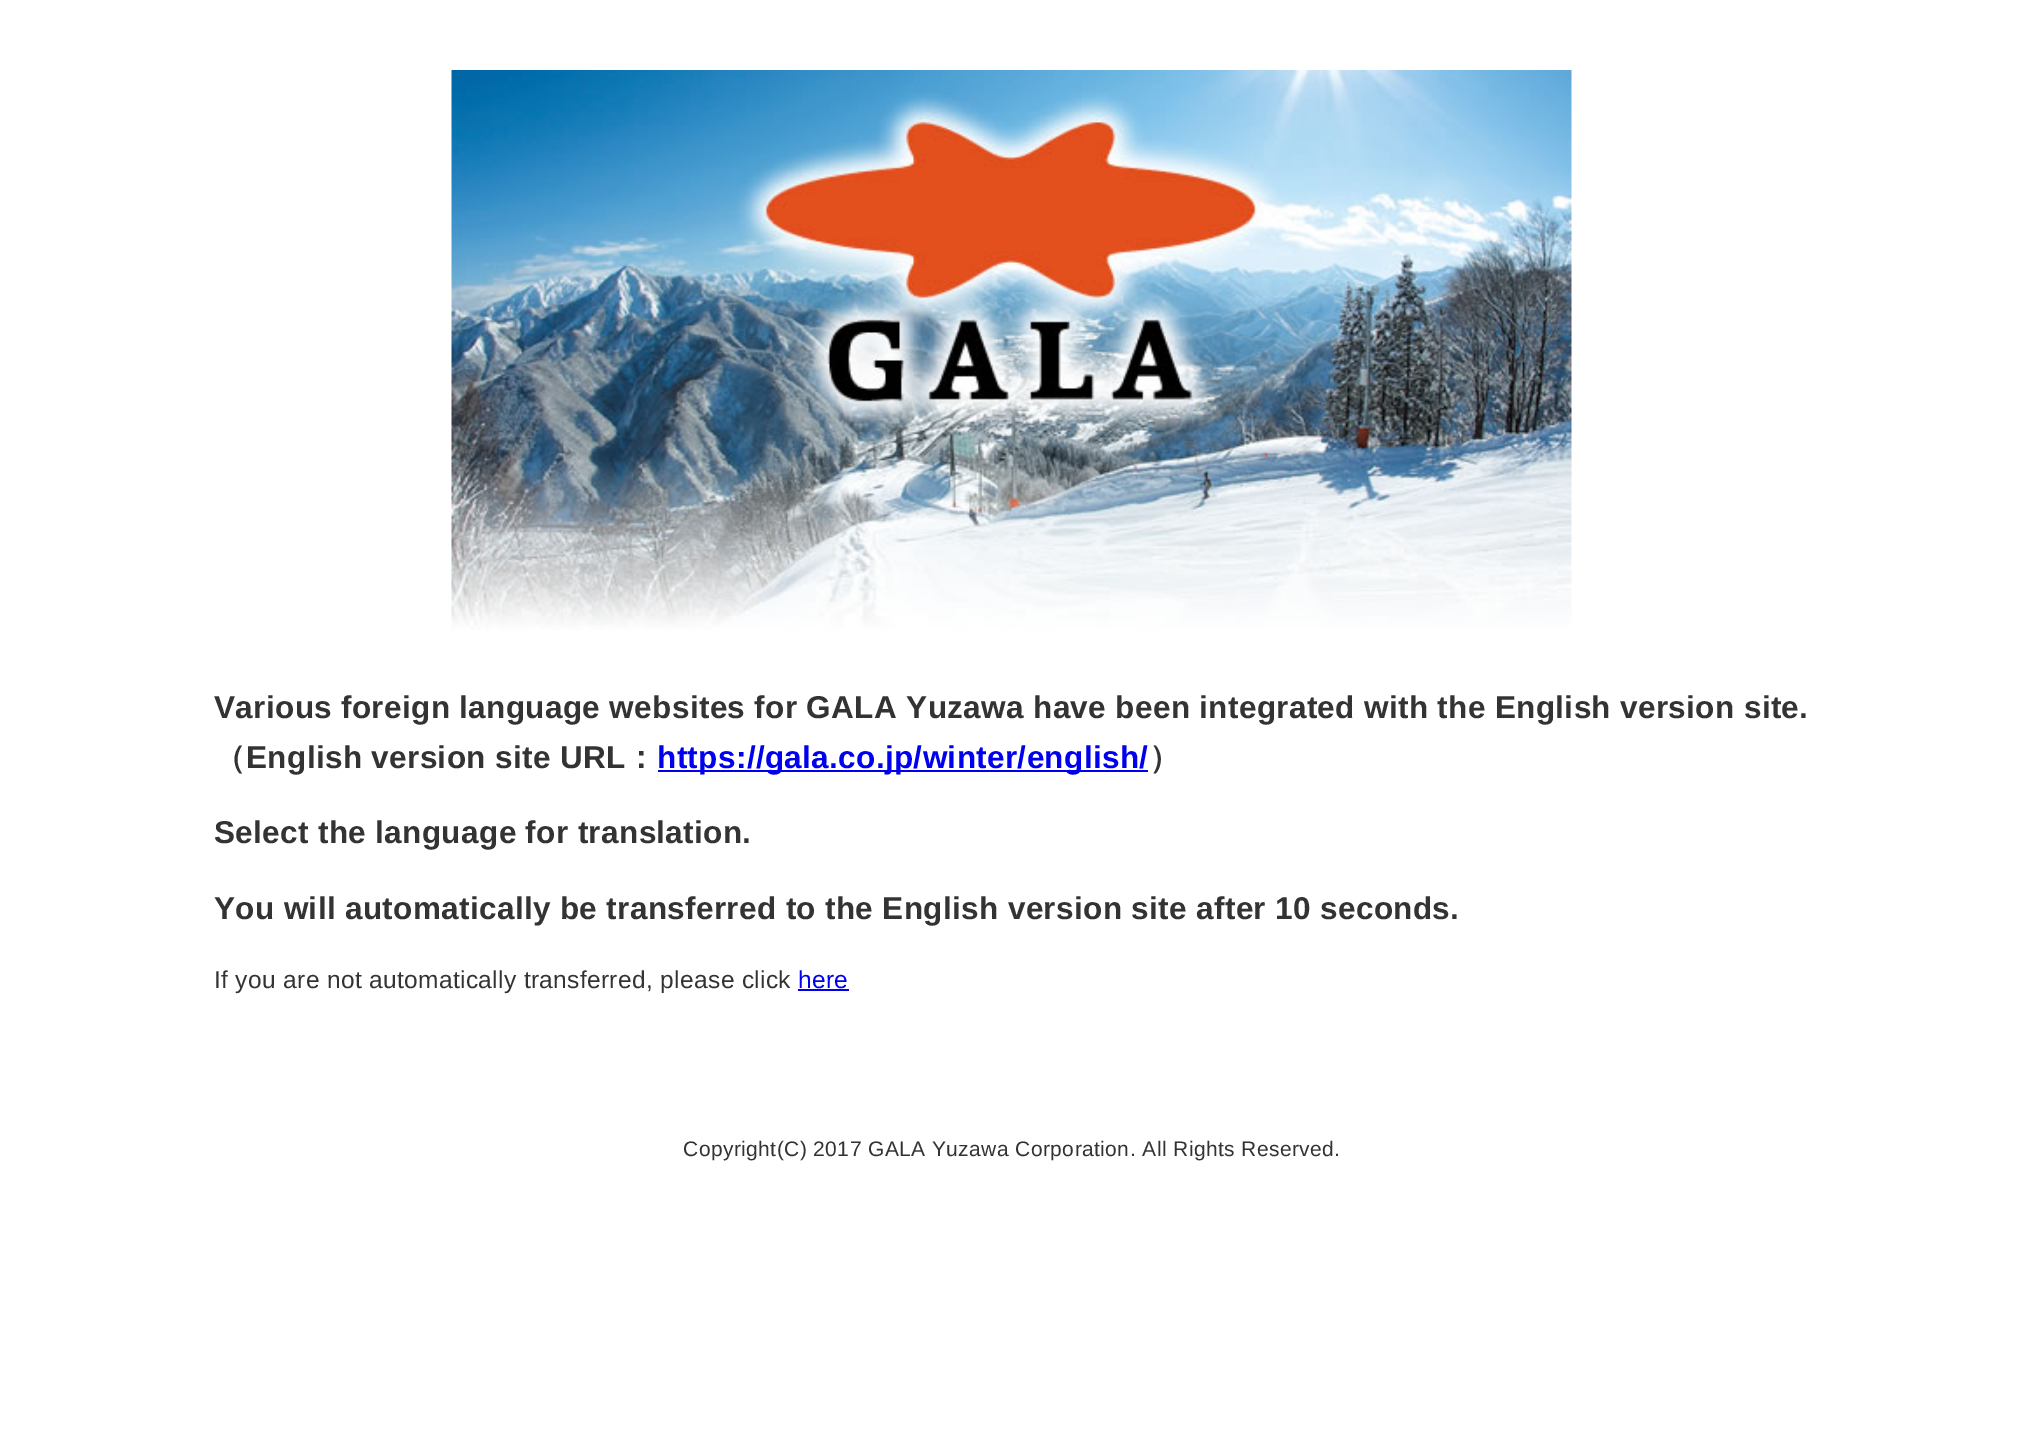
%!PS
<< /PageSize [2023 1442] >> setpagedevice
/mt/moveto load def
/co { dup -16 bitshift 255 div exch dup -8 bitshift 255 and 255 div exch 255 and 255 div setrgbcolor } def
/fn { [ exch dup neg 0 0 3 -1 roll 0 0 ] selectfont } def
/bx { co rectfill } def
/im { 5 dict begin { /h /w /y /x /name } { exch def } forall
  gsave x y translate w h scale
  w h 8 [w 0 0 h 0 0] name (r) file false 3 colorimage grestore end } def
0 1442 translate 1 -1 scale
4 setmiterlimit
0 0 2023 1442 16#FFFFFF bx
(media/1.raw) 451 70 1121 560 im
658 770 490 2 16#0000EE bx
798 989 51 2 16#0000EE bx
/LiberationSans-Bold 31.5 fn
16#333333 co
214 718 mt .35 0 (Various foreign language websites for GALA Yuzawa have been integrated with the English version site.) ashow
/WenQuanYiZenHei-Bold 31.5 fn
214 768 mt .35 0 (（) ashow
/LiberationSans-Bold 31.5 fn
246 768 mt .35 0 (English version site URL) ashow
/WenQuanYiZenHei-Bold 31.5 fn
625 768 mt .35 0 (：) ashow
/LiberationSans-Bold 31.5 fn
16#0000EE co
657 768 mt .35 0 (https://gala.co.jp/winter/english/) ashow
/WenQuanYiZenHei-Bold 31.5 fn
16#333333 co
1149 768 mt .35 0 (）) ashow
/LiberationSans-Bold 31.5 fn
214 843 mt .35 0 (Select the language for translation.) ashow
214 919 mt .35 0 (You will automatically be transferred to the English version site after 10 seconds.) ashow
/LiberationSans-Regular 24.5 fn
214 988 mt .35 0 (If you are not automatically transferred, please click) ashow
16#0000EE co
798 988 mt .35 0 (here) ashow
/LiberationSans-Regular 21 fn
16#333333 co
683 1156 mt .42 0 (Copyright\(C\) 2017 GALA Yuzawa Corporation. All Rights Reserved.) ashow
showpage
